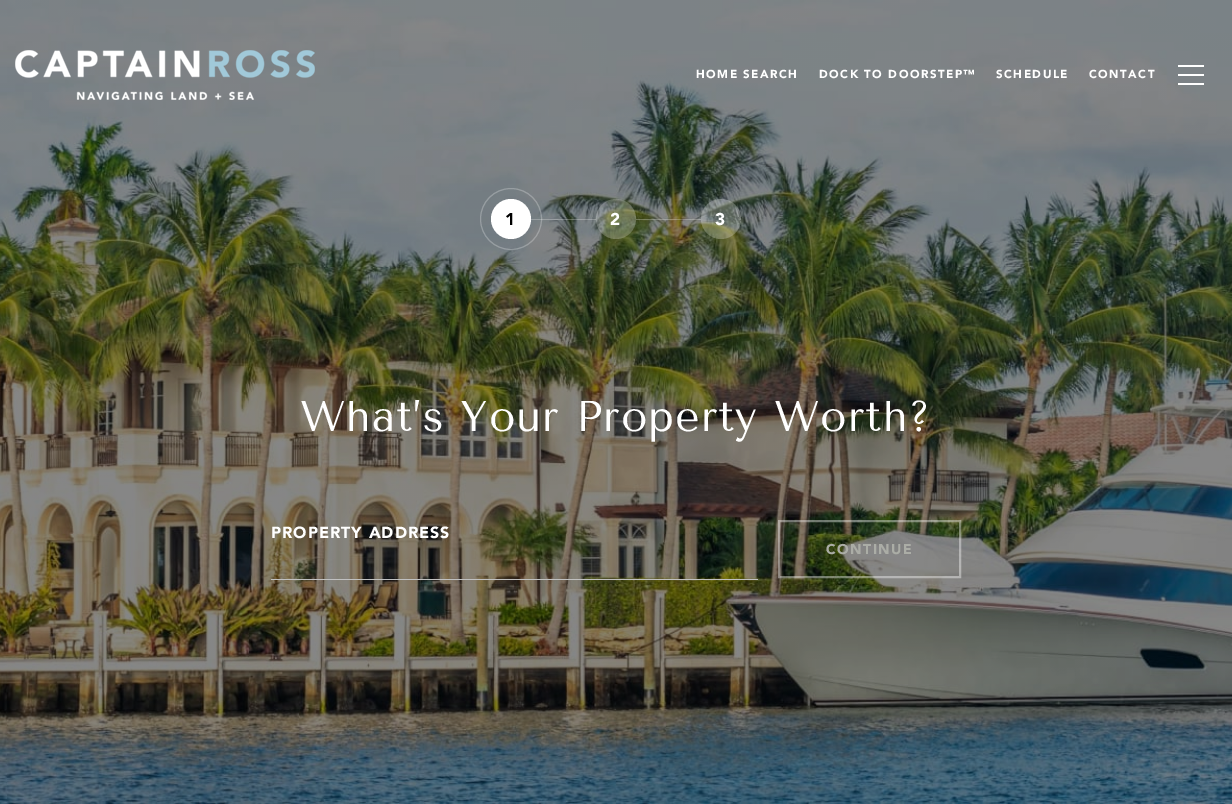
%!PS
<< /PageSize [1232 804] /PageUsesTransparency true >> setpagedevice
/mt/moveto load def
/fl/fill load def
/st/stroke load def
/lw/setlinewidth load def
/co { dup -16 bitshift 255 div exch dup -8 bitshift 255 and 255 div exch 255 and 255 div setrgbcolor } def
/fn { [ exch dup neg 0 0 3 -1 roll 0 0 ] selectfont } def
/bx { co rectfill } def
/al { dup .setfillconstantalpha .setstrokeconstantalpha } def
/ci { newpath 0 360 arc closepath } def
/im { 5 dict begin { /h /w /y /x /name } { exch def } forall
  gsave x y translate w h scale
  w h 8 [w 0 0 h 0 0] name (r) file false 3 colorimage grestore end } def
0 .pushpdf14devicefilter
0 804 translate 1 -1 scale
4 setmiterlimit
0 0 1232 804 16#FFFFFF bx
(media/2.raw) 0 0 1232 804 im
(media/1.raw) 15 50 300 50 im
1178 74 26 2 16#FFFFFF bx
1178 65 26 2 16#FFFFFF bx
1178 83 26 2 16#FFFFFF bx
511 219 20 ci fl
0.25 al
616 219 20 ci fl
721 219 20 ci fl
636 219 65 1 16#FFFFFF bx
1 al
271 579 487 1 16#C0C0C0 bx
0.4 al
16#FFFFFF co
2 lw
779 521 181 56 rectstroke
/Avenir-Black 11.5 fn
1 al
696 78 mt 1.5 0 (HOME SEARCH) ashow
819 78 mt 1.5 0 (DOCK TO DOORSTEP™) ashow
996 78 mt 1.5 0 (SCHEDULE) ashow
1089 78 mt 1.5 0 (CONTACT) ashow
/Avenir-Black 17 fn
16#000000 co
505 225 mt 1 0 (1) ashow
0.25 al
16#FFFFFF co
1 lw
511 219 30.5 ci st
531 219 65 1 16#FFFFFF bx
1 al
610 225 mt 1 0 (2) ashow
715 225 mt 1 0 (3) ashow
/TenorSans-Regular 43 fn
300 431 mt 1 0 (What’s Your Property Worth?) ashow
/Avenir-Black 16 fn
271 538 mt 1 0 (PROPERTY ADDRESS) ashow
/Avenir-Black 14 fn
16#ABADA6 co
826 554 mt 1.5 0 (CONTINUE) ashow
.poppdf14devicefilter showpage
